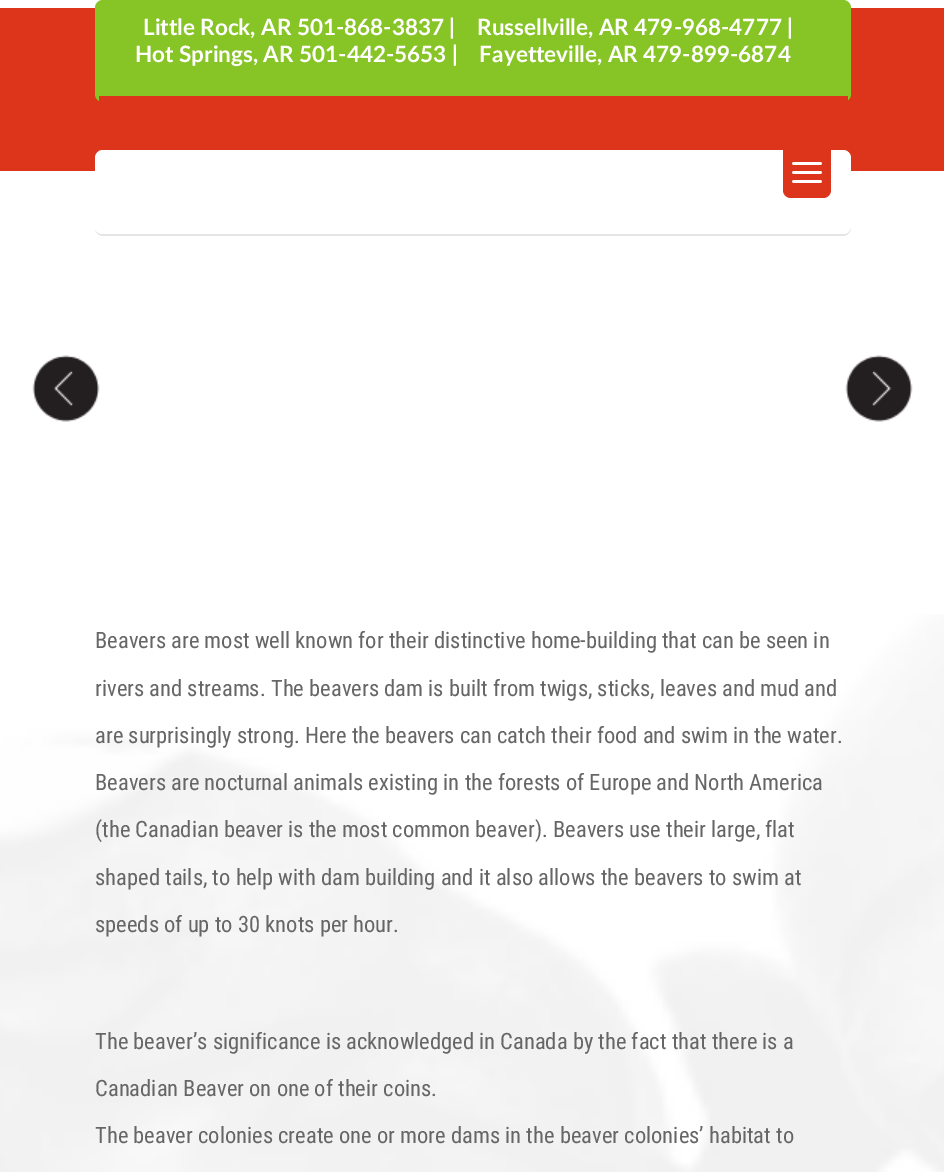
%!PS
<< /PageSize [944 1172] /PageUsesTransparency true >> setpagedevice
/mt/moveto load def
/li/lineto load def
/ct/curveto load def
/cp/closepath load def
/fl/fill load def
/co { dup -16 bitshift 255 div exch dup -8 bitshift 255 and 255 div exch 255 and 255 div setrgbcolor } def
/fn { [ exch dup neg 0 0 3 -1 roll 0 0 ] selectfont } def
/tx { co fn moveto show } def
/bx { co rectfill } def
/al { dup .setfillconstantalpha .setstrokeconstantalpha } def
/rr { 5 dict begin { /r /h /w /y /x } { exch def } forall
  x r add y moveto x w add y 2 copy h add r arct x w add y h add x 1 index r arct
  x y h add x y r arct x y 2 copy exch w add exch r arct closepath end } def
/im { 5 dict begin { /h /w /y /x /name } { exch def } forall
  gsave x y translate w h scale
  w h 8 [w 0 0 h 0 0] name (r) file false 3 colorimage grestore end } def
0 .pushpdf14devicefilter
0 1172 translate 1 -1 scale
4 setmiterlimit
0 0 944 1172 16#FFFFFF bx
0 8 944 163 16#DC351C bx
16#87C426 co
95 0 756 102 8 rr fl
99 96 749 6 16#DC351C bx
0.1 al
16#000000 co
95 230 mt 96 233 99 236 103 236 ct 843 236 li 847 236 851 232 851 228 ct 851 160 li 850 157 li 850 226 li 850 231 847 234 843 234 ct 102 234 li 99 234 96 232 95 230 ct cp fl
1 al
16#FFFFFF co
95 150 756 84 8 rr fl
16#DC351C co
783 150 mt 831 150 li 831 190 li 831 194.5 827.5 198 823 198 ct 791 198 li 786.5 198 783 194.5 783 190 ct cp fl
(media/1.raw) 792 162 30 21 im
(media/2.raw) 0 614 944 558 im
(media/3.raw) 32 355 68 67 im
(media/4.raw) 845 355 68 67 im
(Little Rock, AR 501-868-3837 |    Russellville, AR 479-968-4777 |) 143 35 /Lato-Bold 22.5 16#FFFFFF tx
(Hot Springs, AR 501-442-5653 |    Fayetteville, AR 479-899-6874) 135 62 /Lato-Bold 22.5 16#FFFFFF tx
(Beavers are most well known for their distinctive home-building that can be seen in) 95 648 /RobotoCondensed-Regular 22.5 16#666666 tx
(rivers and streams. The beavers dam is built from twigs, sticks, leaves and mud and) 95 696 /RobotoCondensed-Regular 22.5 16#666666 tx
(are surprisingly strong. Here the beavers can catch their food and swim in the water.) 95 743 /RobotoCondensed-Regular 22.5 16#666666 tx
(Beavers are nocturnal animals existing in the forests of Europe and North America) 95 790 /RobotoCondensed-Regular 22.5 16#666666 tx
(\(the Canadian beaver is the most common beaver\). Beavers use their large, flat) 95 837 /RobotoCondensed-Regular 22.5 16#666666 tx
(shaped tails, to help with dam building and it also allows the beavers to swim at) 95 885 /RobotoCondensed-Regular 22.5 16#666666 tx
(speeds of up to 30 knots per hour.) 95 932 /RobotoCondensed-Regular 22.5 16#666666 tx
(The beaver’s significance is acknowledged in Canada by the fact that there is a) 95 1049 /RobotoCondensed-Regular 22.5 16#666666 tx
(Canadian Beaver on one of their coins.) 95 1096 /RobotoCondensed-Regular 22.5 16#666666 tx
(The beaver colonies create one or more dams in the beaver colonies’ habitat to) 95 1143 /RobotoCondensed-Regular 22.5 16#666666 tx
.poppdf14devicefilter showpage
